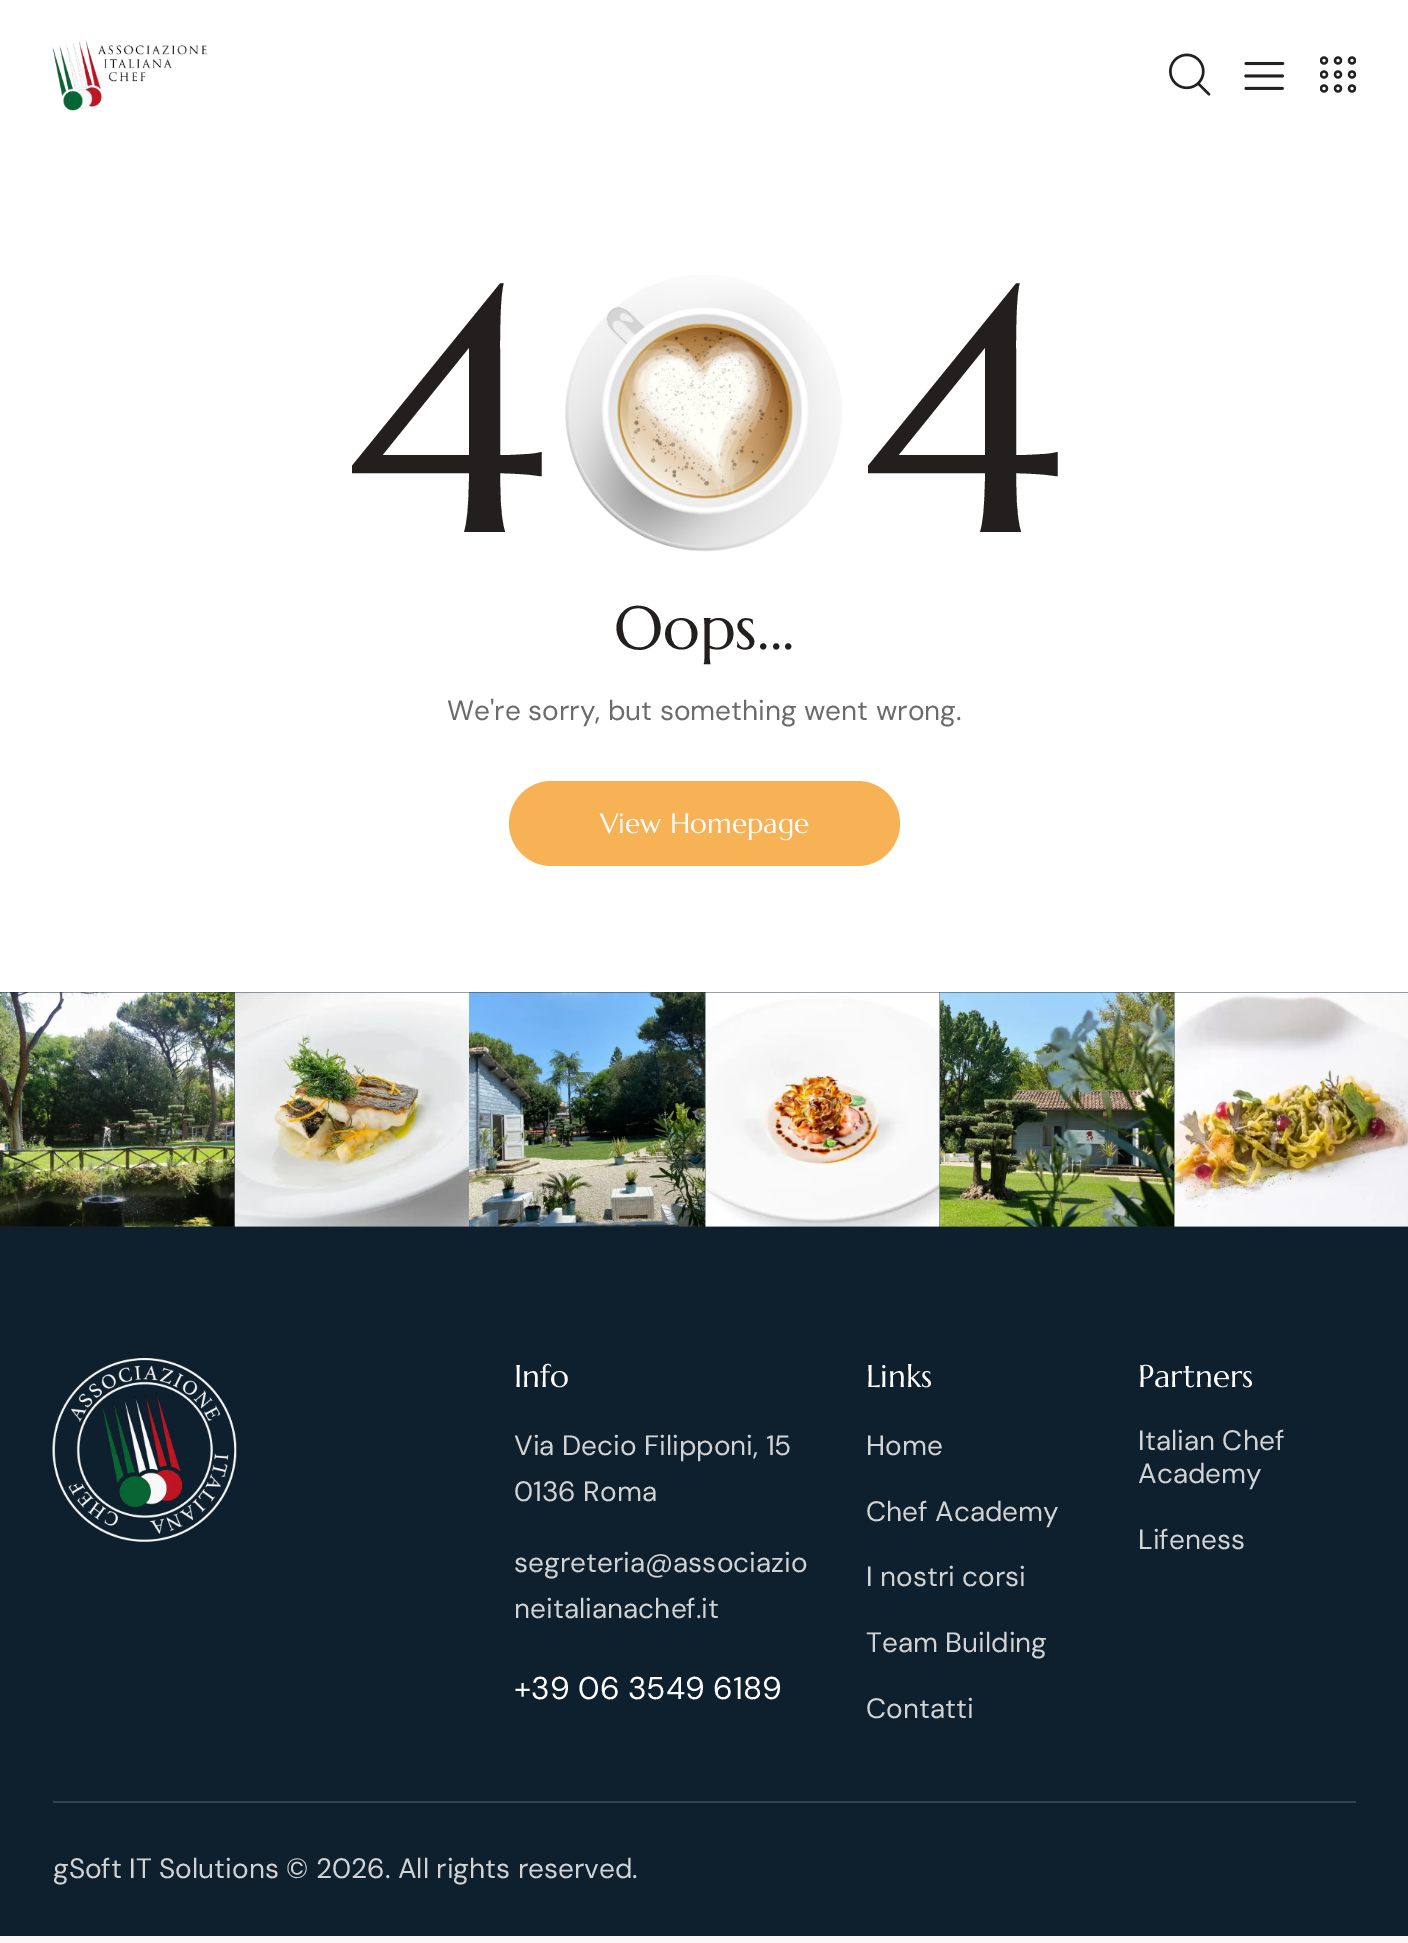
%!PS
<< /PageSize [1408 1943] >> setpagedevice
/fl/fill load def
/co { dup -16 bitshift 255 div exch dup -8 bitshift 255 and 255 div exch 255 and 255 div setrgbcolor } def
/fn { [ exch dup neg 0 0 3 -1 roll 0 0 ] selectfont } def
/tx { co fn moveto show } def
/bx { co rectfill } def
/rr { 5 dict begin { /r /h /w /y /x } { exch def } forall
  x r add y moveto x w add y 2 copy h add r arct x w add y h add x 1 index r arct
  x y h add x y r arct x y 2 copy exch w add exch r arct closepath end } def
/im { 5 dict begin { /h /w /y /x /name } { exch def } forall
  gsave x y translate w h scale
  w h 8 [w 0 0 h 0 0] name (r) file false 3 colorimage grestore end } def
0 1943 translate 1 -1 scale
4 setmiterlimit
0 0 1408 1943 16#FCF7F4 bx
0 0 1408 992 16#FFFFFF bx
(media/1.raw) 52 40 155 71 im
(media/2.raw) 1169 53 42 43 im
(media/3.raw) 1244 61 41 29 im
(media/4.raw) 1320 56 36 37 im
(media/5.raw) 565 275 277 277 im
16#F6B255 co
509 781 391 85 42.5 rr fl
0 992 1408 235 16#112634 bx
(media/6.raw) 0 992 235 235 im
(media/7.raw) 234 992 235 235 im
(media/8.raw) 469 992 237 235 im
(media/9.raw) 705 992 235 235 im
(media/10.raw) 939 992 236 235 im
(media/11.raw) 1174 992 234 235 im
0 1227 1408 709 16#0E202D bx
(media/12.raw) 52 1358 185 184 im
53 1801 1303 2 16#35414B bx
(4) 346 532 /Marcellus-Regular 350 16#221F1E tx
(4) 862 532 /Marcellus-Regular 350 16#221F1E tx
(Oops...) 614 649 /Marcellus-Regular 61 16#221F1E tx
(We're sorry, but something went wrong.) 447 720 /DMSans-Regular 28 16#6B6B6B tx
(View Homepage) 600 833 /Marcellus-Regular 28 16#FCFCFC tx
(Info) 514 1387 /Marcellus-Regular 31.5 16#FCFCFC tx
(Via Decio Filipponi, 15) 514 1455 /DMSans-Regular 28 16#D2D3D5 tx
(0136 Roma) 514 1501 /DMSans-Regular 28 16#D2D3D5 tx
(segreteria@associazio) 514 1572 /DMSans-Regular 28 16#D2D3D5 tx
(neitalianachef.it) 514 1618 /DMSans-Regular 28 16#D2D3D5 tx
(+39 06 3549 6189) 514 1699 /DMSans-Regular 31.5 16#FCFCFC tx
(Links) 866 1387 /Marcellus-Regular 31.5 16#FCFCFC tx
(Home) 866 1455 /DMSans-Regular 28 16#D2D3D5 tx
(Chef Academy) 866 1521 /DMSans-Regular 28 16#D2D3D5 tx
(I nostri corsi) 866 1586 /DMSans-Regular 28 16#D2D3D5 tx
(Team Building) 866 1652 /DMSans-Regular 28 16#D2D3D5 tx
(Contatti) 866 1718 /DMSans-Regular 28 16#D2D3D5 tx
(Partners) 1138 1387 /Marcellus-Regular 31.5 16#FCFCFC tx
(Italian Chef) 1138 1450 /DMSans-Regular 28 16#D2D3D5 tx
(Academy) 1138 1483 /DMSans-Regular 28 16#D2D3D5 tx
(Lifeness) 1138 1549 /DMSans-Regular 28 16#D2D3D5 tx
(gSoft IT Solutions © 2026. All rights reserved.) 53 1878 /DMSans-Regular 28 16#D2D3D5 tx
showpage
